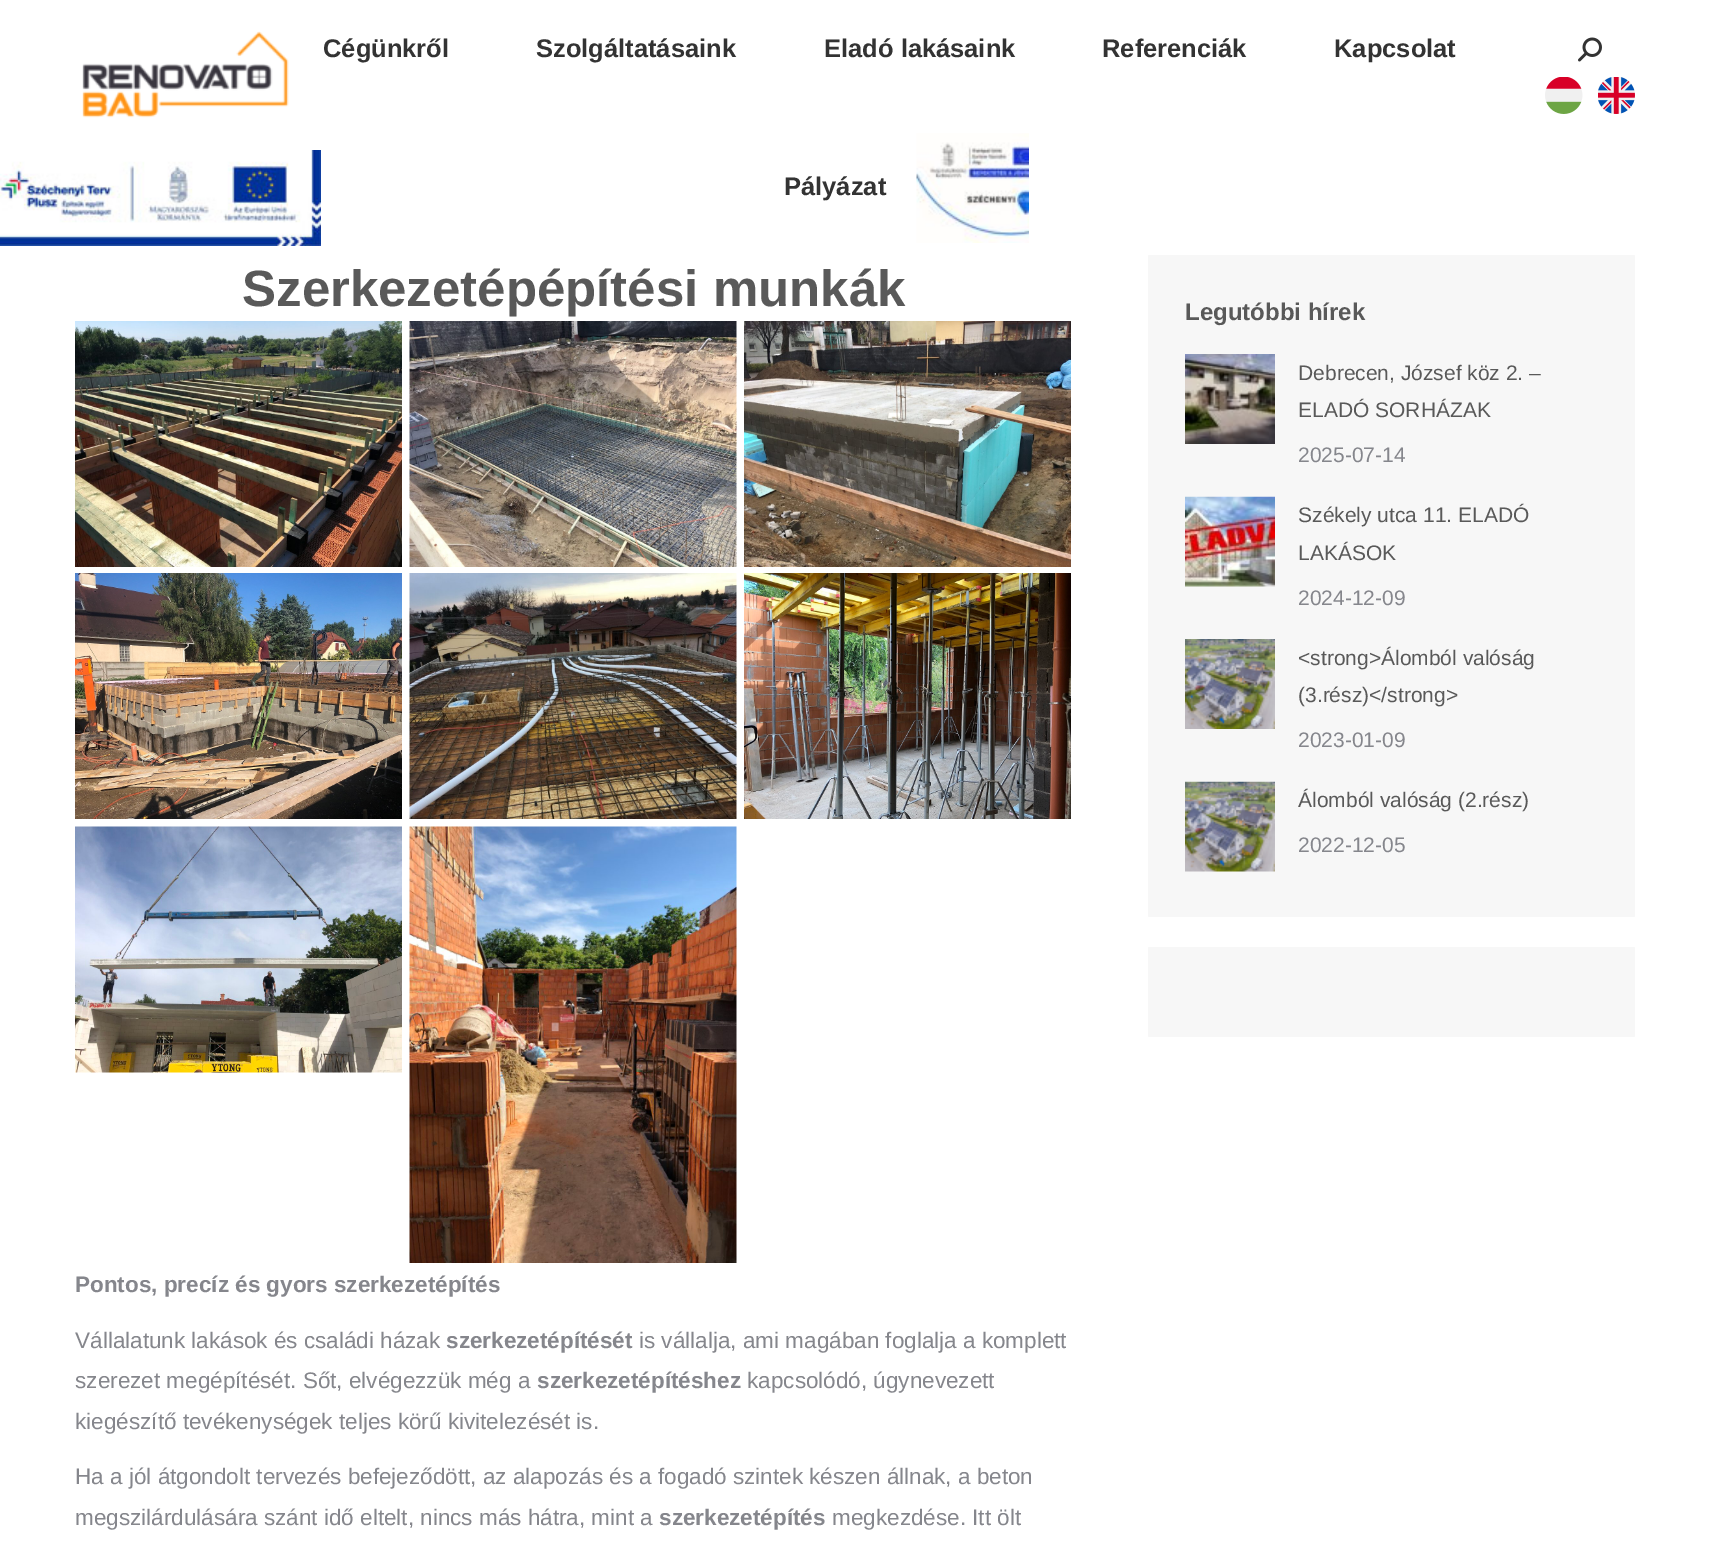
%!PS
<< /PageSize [1709 1541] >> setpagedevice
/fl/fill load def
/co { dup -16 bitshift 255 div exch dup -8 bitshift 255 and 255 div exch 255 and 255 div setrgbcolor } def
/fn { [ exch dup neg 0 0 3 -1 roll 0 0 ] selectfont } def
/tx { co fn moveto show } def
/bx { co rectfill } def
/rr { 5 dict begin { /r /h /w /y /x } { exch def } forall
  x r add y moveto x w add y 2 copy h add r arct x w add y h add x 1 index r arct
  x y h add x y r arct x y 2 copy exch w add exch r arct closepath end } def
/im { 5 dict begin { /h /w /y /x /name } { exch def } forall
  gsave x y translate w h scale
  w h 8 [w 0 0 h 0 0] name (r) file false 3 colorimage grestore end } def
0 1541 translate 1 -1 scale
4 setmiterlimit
0 0 1709 1541 16#FFFFFF bx
(media/1.raw) 0 150 321 96 im
(media/2.raw) 82 31 207 87 im
(media/3.raw) 916 133 113 110 im
(media/4.raw) 1578 37 24 25 im
(media/5.raw) 1545 77 38 37 im
(media/6.raw) 1598 77 37 37 im
(media/7.raw) 75 321 327 246 im
(media/8.raw) 409 321 328 246 im
(media/9.raw) 744 321 327 246 im
(media/10.raw) 75 573 327 246 im
(media/11.raw) 409 573 328 246 im
(media/12.raw) 744 573 327 246 im
(media/13.raw) 75 826 327 247 im
(media/14.raw) 409 826 328 437 im
16#F7F7F7 co
1148 255 487 662 1.5 rr fl
(media/15.raw) 1185 354 90 90 im
(media/16.raw) 1185 496 90 91 im
(media/17.raw) 1185 639 90 90 im
(media/18.raw) 1185 781 90 91 im
1148 947 487 90 1.5 rr fl
(Cégünkről) 323 57 /LiberationSans-Bold 25.5 16#333333 tx
(Szolgáltatásaink) 536 57 /LiberationSans-Bold 25.5 16#333333 tx
(Eladó lakásaink) 824 57 /LiberationSans-Bold 25.5 16#333333 tx
(Referenciák) 1102 57 /LiberationSans-Bold 25.5 16#333333 tx
(Kapcsolat) 1334 57 /LiberationSans-Bold 25.5 16#333333 tx
(Pályázat) 784 195 /LiberationSans-Bold 25.5 16#333333 tx
(Szerkezetépépítési munkák) 242 306 /LiberationSans-Bold 51 16#595959 tx
(Pontos, precíz és gyors szerkezetépítés) 75 1292 /LiberationSans-Bold 22.5 16#85868C tx
(Vállalatunk lakások és családi házak) 75 1348 /LiberationSans-Regular 22.5 16#85868C tx
(szerkezetépítését) 446 1348 /LiberationSans-Bold 22.5 16#85868C tx
(is vállalja, ami magában foglalja a komplett) 639 1348 /LiberationSans-Regular 22.5 16#85868C tx
(szerezet megépítését. Sőt, elvégezzük még a) 75 1388 /LiberationSans-Regular 22.5 16#85868C tx
(szerkezetépítéshez) 537 1388 /LiberationSans-Bold 22.5 16#85868C tx
(kapcsolódó, úgynevezett) 747 1388 /LiberationSans-Regular 22.5 16#85868C tx
(kiegészítő tevékenységek teljes körű kivitelezését is.) 75 1429 /LiberationSans-Regular 22.5 16#85868C tx
(Ha a jól átgondolt tervezés befejeződött, az alapozás és a fogadó szintek készen állnak, a beton) 75 1484 /LiberationSans-Regular 22.5 16#85868C tx
(megszilárdulására szánt idő eltelt, nincs más hátra, mint a) 75 1525 /LiberationSans-Regular 22.5 16#85868C tx
(szerkezetépítés) 659 1525 /LiberationSans-Bold 22.5 16#85868C tx
(megkezdése. Itt ölt) 832 1525 /LiberationSans-Regular 22.5 16#85868C tx
(Legutóbbi hírek) 1185 320 /LiberationSans-Bold 24 16#595959 tx
(Debrecen, József köz 2. –) 1298 380 /LiberationSans-Regular 21 16#595959 tx
(ELADÓ SORHÁZAK) 1298 417 /LiberationSans-Regular 21 16#595959 tx
(2025-07-14) 1298 462 /LiberationSans-Regular 21 16#85868C tx
(Székely utca 11. ELADÓ) 1298 522 /LiberationSans-Regular 21 16#595959 tx
(LAKÁSOK) 1298 560 /LiberationSans-Regular 21 16#595959 tx
(2024-12-09) 1298 605 /LiberationSans-Regular 21 16#85868C tx
(<strong>Álomból valóság) 1298 665 /LiberationSans-Regular 21 16#595959 tx
(\(3.rész\)</strong>) 1298 702 /LiberationSans-Regular 21 16#595959 tx
(2023-01-09) 1298 747 /LiberationSans-Regular 21 16#85868C tx
(Álomból valóság \(2.rész\)) 1298 807 /LiberationSans-Regular 21 16#595959 tx
(2022-12-05) 1298 852 /LiberationSans-Regular 21 16#85868C tx
showpage
